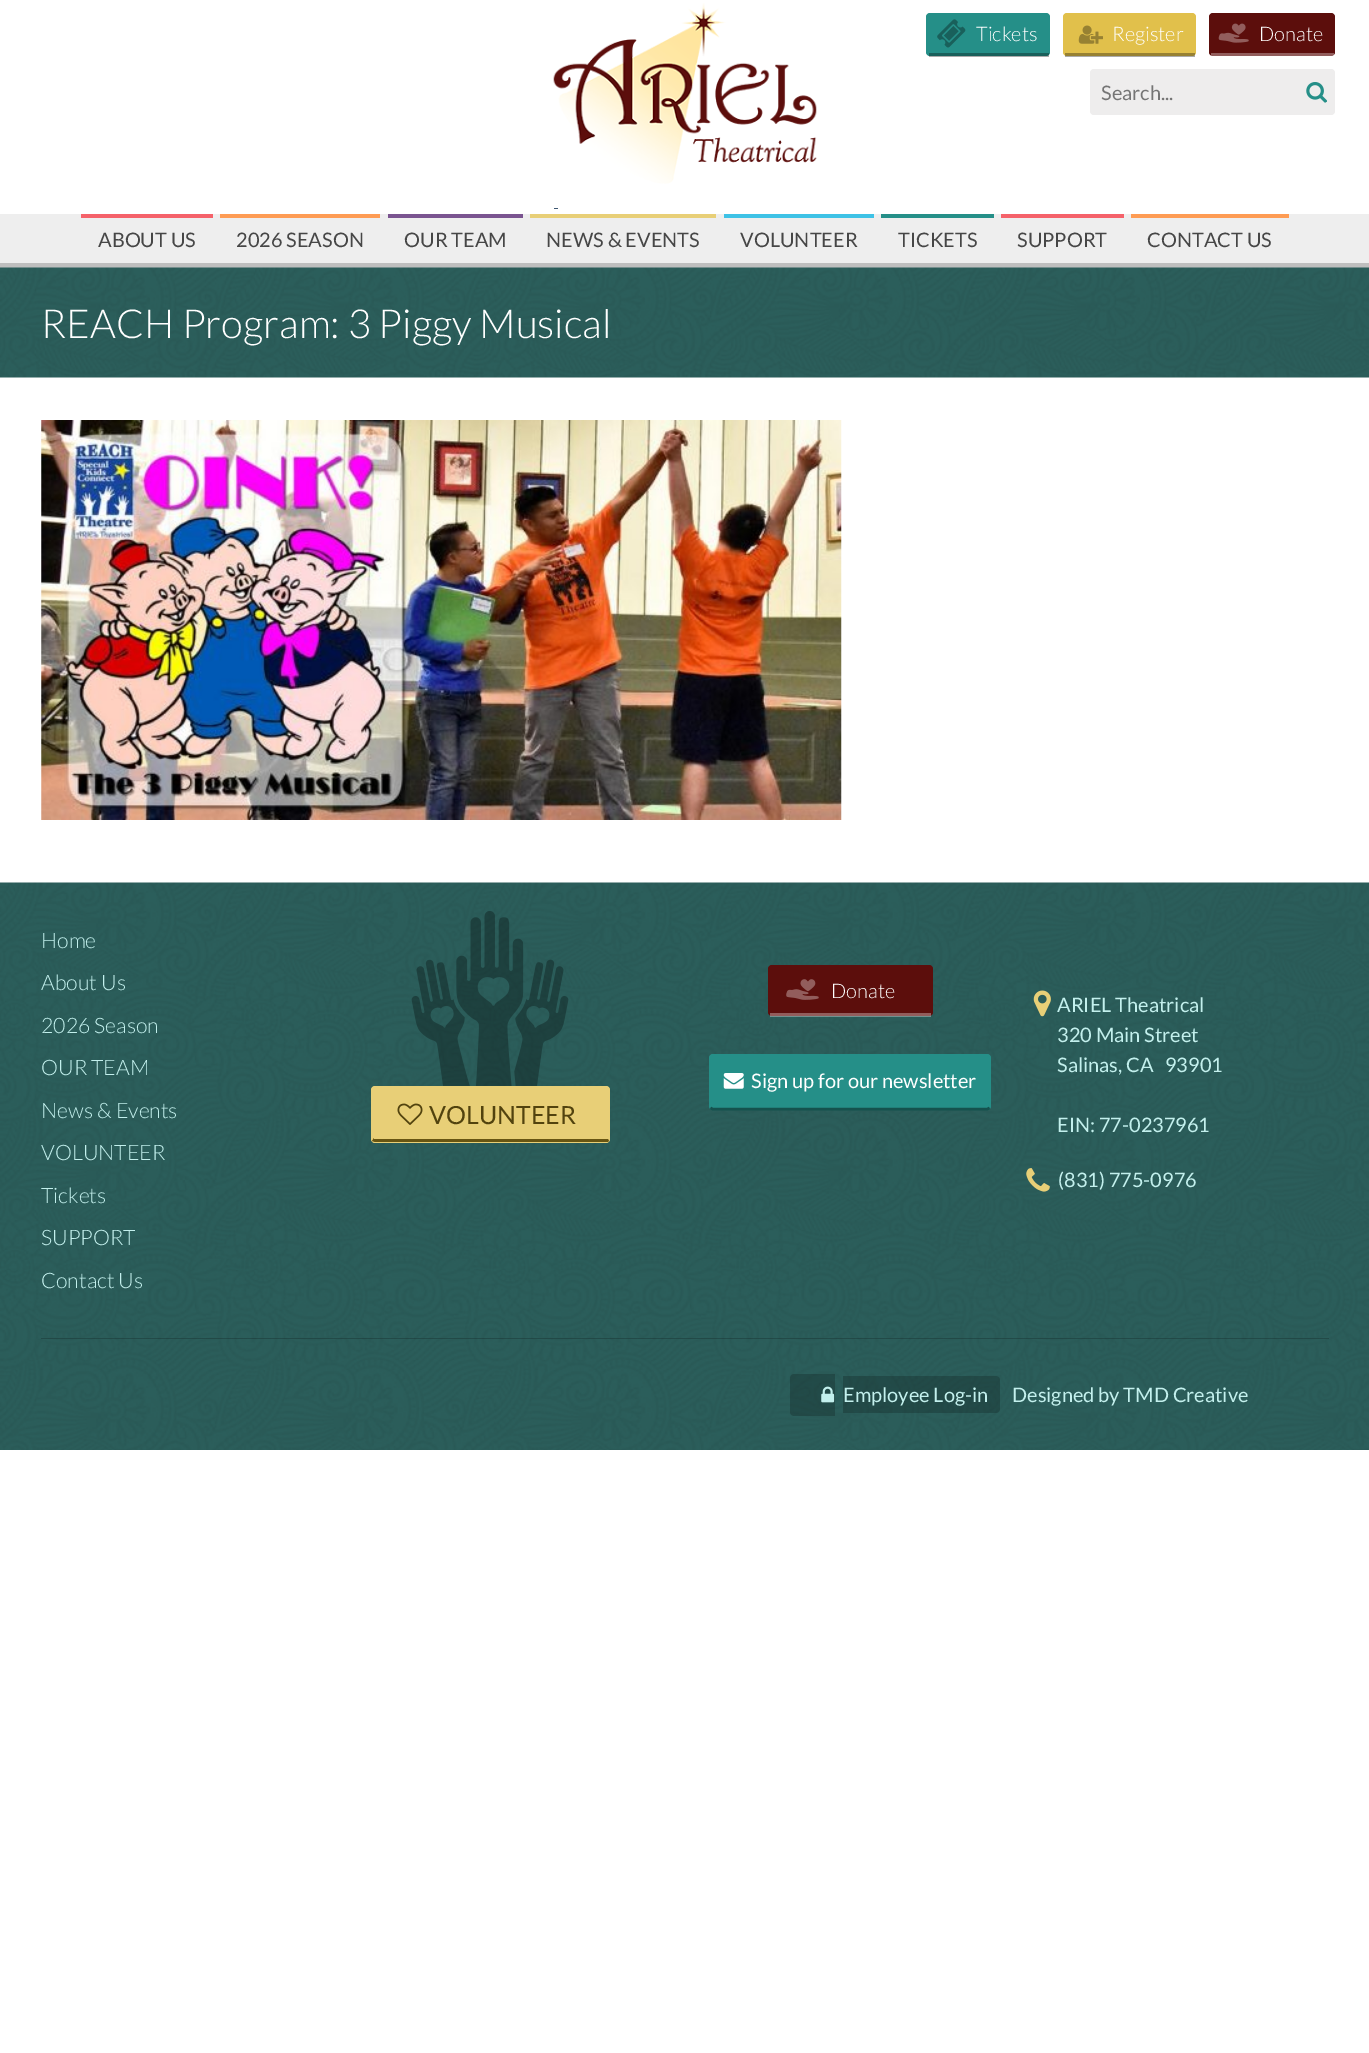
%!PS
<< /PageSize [1369 2053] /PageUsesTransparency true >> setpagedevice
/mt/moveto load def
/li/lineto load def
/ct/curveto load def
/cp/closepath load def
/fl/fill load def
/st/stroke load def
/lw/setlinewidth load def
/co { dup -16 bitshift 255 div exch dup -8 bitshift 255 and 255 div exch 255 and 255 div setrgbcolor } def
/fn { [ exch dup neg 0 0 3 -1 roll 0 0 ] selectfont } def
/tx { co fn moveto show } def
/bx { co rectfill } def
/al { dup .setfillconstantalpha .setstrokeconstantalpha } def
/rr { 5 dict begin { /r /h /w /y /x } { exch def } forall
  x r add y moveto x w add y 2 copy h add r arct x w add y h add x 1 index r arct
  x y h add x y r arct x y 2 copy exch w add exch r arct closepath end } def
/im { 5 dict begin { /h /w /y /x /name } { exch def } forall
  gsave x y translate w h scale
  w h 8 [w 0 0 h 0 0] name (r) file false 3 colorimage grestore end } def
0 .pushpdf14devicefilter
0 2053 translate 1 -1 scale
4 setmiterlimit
0 0 1369 2053 16#FFFFFF bx
(media/1.raw) 553 3 264 181 im
554 208 4 1 16#3E5771 bx
16#258F88 co
926 13 124 43 4 rr fl
0.33 al
929 53 120 4 16#000000 bx
1 al
(media/2.raw) 937 19 29 29 im
16#E1C04B co
1063 13 133 43 4 rr fl
0.33 al
1065 53 130 4 16#000000 bx
1 al
(media/3.raw) 1078 25 25 19 im
16#5C0E0C co
1209 13 126 43 4 rr fl
0.33 al
1211 53 123 3 16#FFFFFF bx
1 al
(media/4.raw) 1218 23 31 20 im
16#EEEDED co
1090 69 245 46 4 rr fl
(media/5.raw) 1306 82 21 21 im
0 214 1369 49 16#EEEEEE bx
0 263 1369 5 16#BEBEBE bx
81 214 132 4 16#F5626A bx
220 214 160 4 16#FE9C54 bx
388 214 135 4 16#7A5490 bx
530 214 186 4 16#E8CF77 bx
724 214 150 4 16#3EC2E6 bx
881 214 113 4 16#258F88 bx
1001 214 123 4 16#F5626A bx
1131 214 158 4 16#FE9C54 bx
(media/6.raw) 0 267 1369 111 im
(media/7.raw) 41 420 801 400 im
(media/8.raw) 0 882 1369 568 im
16#E8CF77 co
371 1086 239 57 4 rr fl
16#685512 co
609 1141 mt 608 1142 607 1142 606 1142 ct 375 1142 li 372 1141 li 374 1138 li 374 1139 li 608 1139 li cp fl
(media/9.raw) 411 911 158 175 im
(media/10.raw) 397 1103 26 22 im
16#5C0E0C co
768 965 165 51 4 rr fl
0.33 al
770 1013 161 4 16#FFFFFF bx
1 al
(media/11.raw) 786 979 33 21 im
16#258F88 co
709 1054 282 56 4 rr fl
16#15524E co
2.5 lw
989.5 1108 mt 987.5 1109 li 712.5 1109 li 710.5 1108 li st
(media/12.raw) 723 1073 21 16 im
(media/13.raw) 1033 990 18 27 im
(media/14.raw) 1026 1168 24 24 im
0.2 al
41 1338 1288 1 16#000000 bx
794 1374 mt 835 1374 li 835 1416 li 794 1416 li 792 1416 790 1414 790 1412 ct 790 1378 li 790 1376 792 1374 794 1374 ct cp fl
843 1376 mt 996 1376 li 998 1376 1000 1378 1000 1380 ct 1000 1409 li 1000 1411 998 1413 996 1413 ct 843 1413 li cp fl
1 al
(media/15.raw) 821 1386 14 17 im
(Tickets) 976 41 /Lato-Light 20 16#FFFFFF tx
(Register) 1112 41 /Lato-Light 20 16#FFFFFF tx
(Donate) 1259 41 /Lato-Light 20 16#FFFFFF tx
(Search...) 1101 100 /Lato-Regular 20 16#757575 tx
(ABOUT US) 98 247 /Lato-Regular 20 16#464646 tx
(2026 SEASON) 236 247 /Lato-Regular 20 16#464646 tx
(OUR TEAM) 404 247 /Lato-Regular 20 16#464646 tx
(NEWS & EVENTS) 546 247 /Lato-Regular 20 16#464646 tx
(VOLUNTEER) 740 247 /Lato-Regular 20 16#464646 tx
(TICKETS) 898 247 /Lato-Regular 20 16#464646 tx
(SUPPORT) 1017 247 /Lato-Regular 20 16#464646 tx
(CONTACT US) 1147 247 /Lato-Regular 20 16#464646 tx
(REACH Program: 3 Piggy Musical) 41 338 /Lato-Light 40 16#FFFFFF tx
(Home) 41 948 /Lato-Light 21.25 16#C3F0ED tx
(About Us) 41 990 /Lato-Light 21.25 16#C3F0ED tx
(2026 Season) 41 1033 /Lato-Light 21.25 16#C3F0ED tx
(OUR TEAM) 41 1075 /Lato-Light 21.25 16#C3F0ED tx
(News & Events) 41 1118 /Lato-Light 21.25 16#C3F0ED tx
(VOLUNTEER) 41 1160 /Lato-Light 21.25 16#C3F0ED tx
(Tickets) 41 1203 /Lato-Light 21.25 16#C3F0ED tx
(SUPPORT) 41 1245 /Lato-Light 21.25 16#C3F0ED tx
(Contact Us) 41 1288 /Lato-Light 21.25 16#C3F0ED tx
(VOLUNTEER) 429 1124 /Lato-Regular 25 16#52430E tx
(Donate) 831 998 /Lato-Light 20 16#FFFFFF tx
(Sign up for our newsletter) 751 1088 /Lato-Regular 20 16#FFFFFF tx
(ARIEL Theatrical) 1057 1012 /Lato-Regular 20 16#C3F0ED tx
(320 Main Street) 1057 1042 /Lato-Regular 20 16#C3F0ED tx
(Salinas, CA   93901) 1057 1072 /Lato-Regular 20 16#C3F0ED tx
(EIN: 77-0237961) 1057 1132 /Lato-Regular 20 16#C3F0ED tx
(\(831\) 775-0976) 1058 1187 /Lato-Regular 20 16#C3F0ED tx
(Employee Log-in) 843 1402 /Lato-Regular 20 16#C3F0ED tx
(Designed by TMD Creative) 1012 1402 /Lato-Regular 20 16#C3F0ED tx
.poppdf14devicefilter showpage
